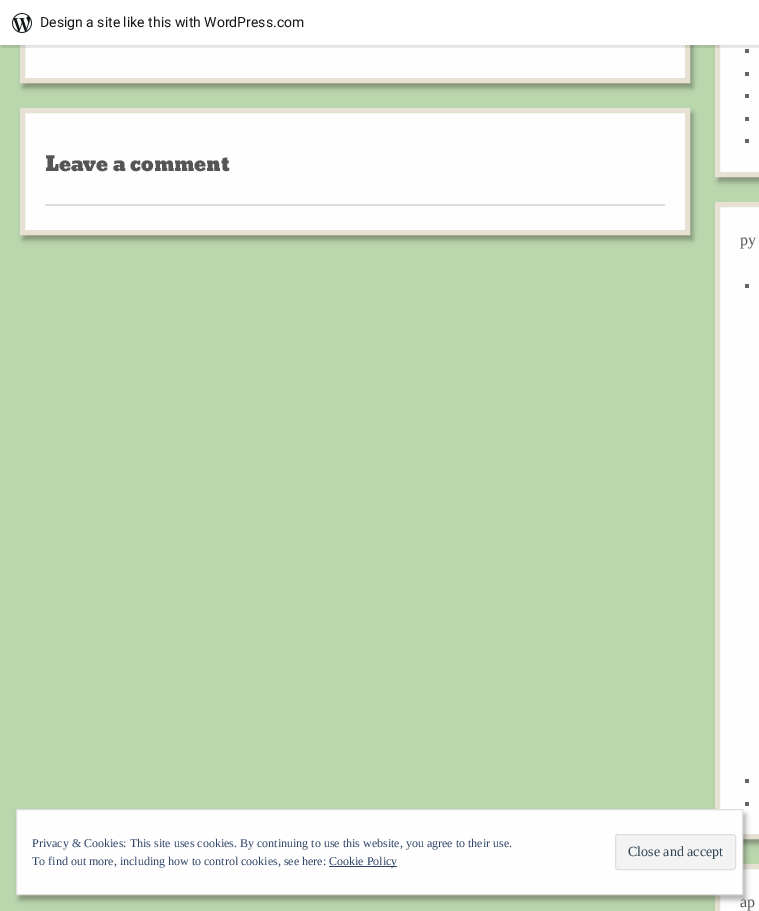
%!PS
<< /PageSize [759 911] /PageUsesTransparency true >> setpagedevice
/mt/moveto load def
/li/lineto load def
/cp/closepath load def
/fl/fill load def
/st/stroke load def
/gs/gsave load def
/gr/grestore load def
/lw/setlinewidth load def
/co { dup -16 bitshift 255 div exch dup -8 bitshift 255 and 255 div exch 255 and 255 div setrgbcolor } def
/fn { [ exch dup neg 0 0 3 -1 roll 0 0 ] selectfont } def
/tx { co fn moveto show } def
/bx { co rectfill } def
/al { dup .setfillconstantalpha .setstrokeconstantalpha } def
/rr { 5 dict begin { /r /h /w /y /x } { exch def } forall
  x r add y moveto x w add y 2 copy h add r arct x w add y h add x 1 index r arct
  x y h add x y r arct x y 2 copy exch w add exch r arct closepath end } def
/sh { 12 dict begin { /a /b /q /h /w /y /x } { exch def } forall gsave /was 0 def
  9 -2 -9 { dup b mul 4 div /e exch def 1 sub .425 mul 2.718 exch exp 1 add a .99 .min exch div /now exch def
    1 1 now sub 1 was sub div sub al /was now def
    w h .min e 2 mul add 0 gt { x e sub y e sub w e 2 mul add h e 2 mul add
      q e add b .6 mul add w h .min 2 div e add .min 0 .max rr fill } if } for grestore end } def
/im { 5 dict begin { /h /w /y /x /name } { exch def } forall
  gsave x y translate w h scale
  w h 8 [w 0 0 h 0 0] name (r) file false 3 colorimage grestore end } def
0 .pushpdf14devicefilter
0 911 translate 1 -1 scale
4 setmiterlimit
0 0 759 911 16#B9D6AD bx
16#000000 co
23 -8 670 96 0 2.5 .3 sh
25 45 660 33 16#FEFEFE bx
16#E7E1D4 co
5 lw
22.5 -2.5 665 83 rectstroke
16#000000 co
718 -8 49 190 0 2.5 .3 sh
720 45 39 127 16#FEFEFE bx
16#E7E1D4 co
717.5 -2.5 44 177 rectstroke
745 49 4 4 16#666666 bx
16#000000 co
0 1 759 45 0 1 .05 sh
0.08 al
1 45 mt 1 48 li 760 48 li 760 3 li 759 3 li 759 45 li cp fl
1 al
0 0 759 45 16#FFFFFF bx
(media/1.raw) 12 13 20 20 im
16#000000 co
23 113 670 127 0 2.5 .3 sh
16#FEFEFE co
22.5 110.5 mt 687.5 110.5 li 687.5 232.5 li 22.5 232.5 li cp gs fl gr
16#E7E1D4 co
st
45 204 620 2 16#DCDCDE bx
745 72 4 4 16#666666 bx
745 94 4 4 16#666666 bx
745 117 4 4 16#666666 bx
745 139 4 4 16#666666 bx
16#000000 co
718 207 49 637 0 2.5 .3 sh
16#FEFEFE co
717.5 204.5 mt 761.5 204.5 li 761.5 836.5 li 717.5 836.5 li cp gs fl gr
16#E7E1D4 co
st
745 284 4 4 16#666666 bx
745 779 4 4 16#666666 bx
745 802 4 4 16#666666 bx
16#000000 co
718 869 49 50 0 2.5 .3 sh
16#FEFEFE co
717.5 866.5 mt 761.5 866.5 li 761.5 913.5 li 717.5 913.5 li cp gs fl gr
16#E7E1D4 co
st
16#000000 co
19 814 727 86 0 2.5 .3 sh
16#FEFEFE co
16.5 809.5 mt 742.5 809.5 li 742.5 894.5 li 16.5 894.5 li cp gs fl gr
16#DEDEDE co
1 lw
st
16#F3F3F3 co
615.5 834.5 120 35 2.5 rr gs fl gr
16#DEDEDE co
st
329 866 68 1 16#2E4467 bx
(Design a site like this with WordPress.com) 40 27 /Roboto-Regular 14 16#171717 tx
(Leave a comment) 45 171 /Bevan-Regular 20 16#555555 tx
(ру) 740 245 /LiberationSerif-Regular 16 16#555555 tx
(ар) 740 907 /LiberationSerif-Regular 16 16#555555 tx
(Privacy & Cookies: This site uses cookies. By continuing to use this website, you agree to their use.) 32 847 /LiberationSerif-Regular 12 16#2E4467 tx
(Close and accept) 628 856 /LiberationSerif-Regular 14 16#2E4453 tx
(To find out more, including how to control cookies, see here:) 32 865 /LiberationSerif-Regular 12 16#2E4467 tx
(Cookie Policy) 329 865 /LiberationSerif-Regular 12 16#2E4467 tx
.poppdf14devicefilter showpage
